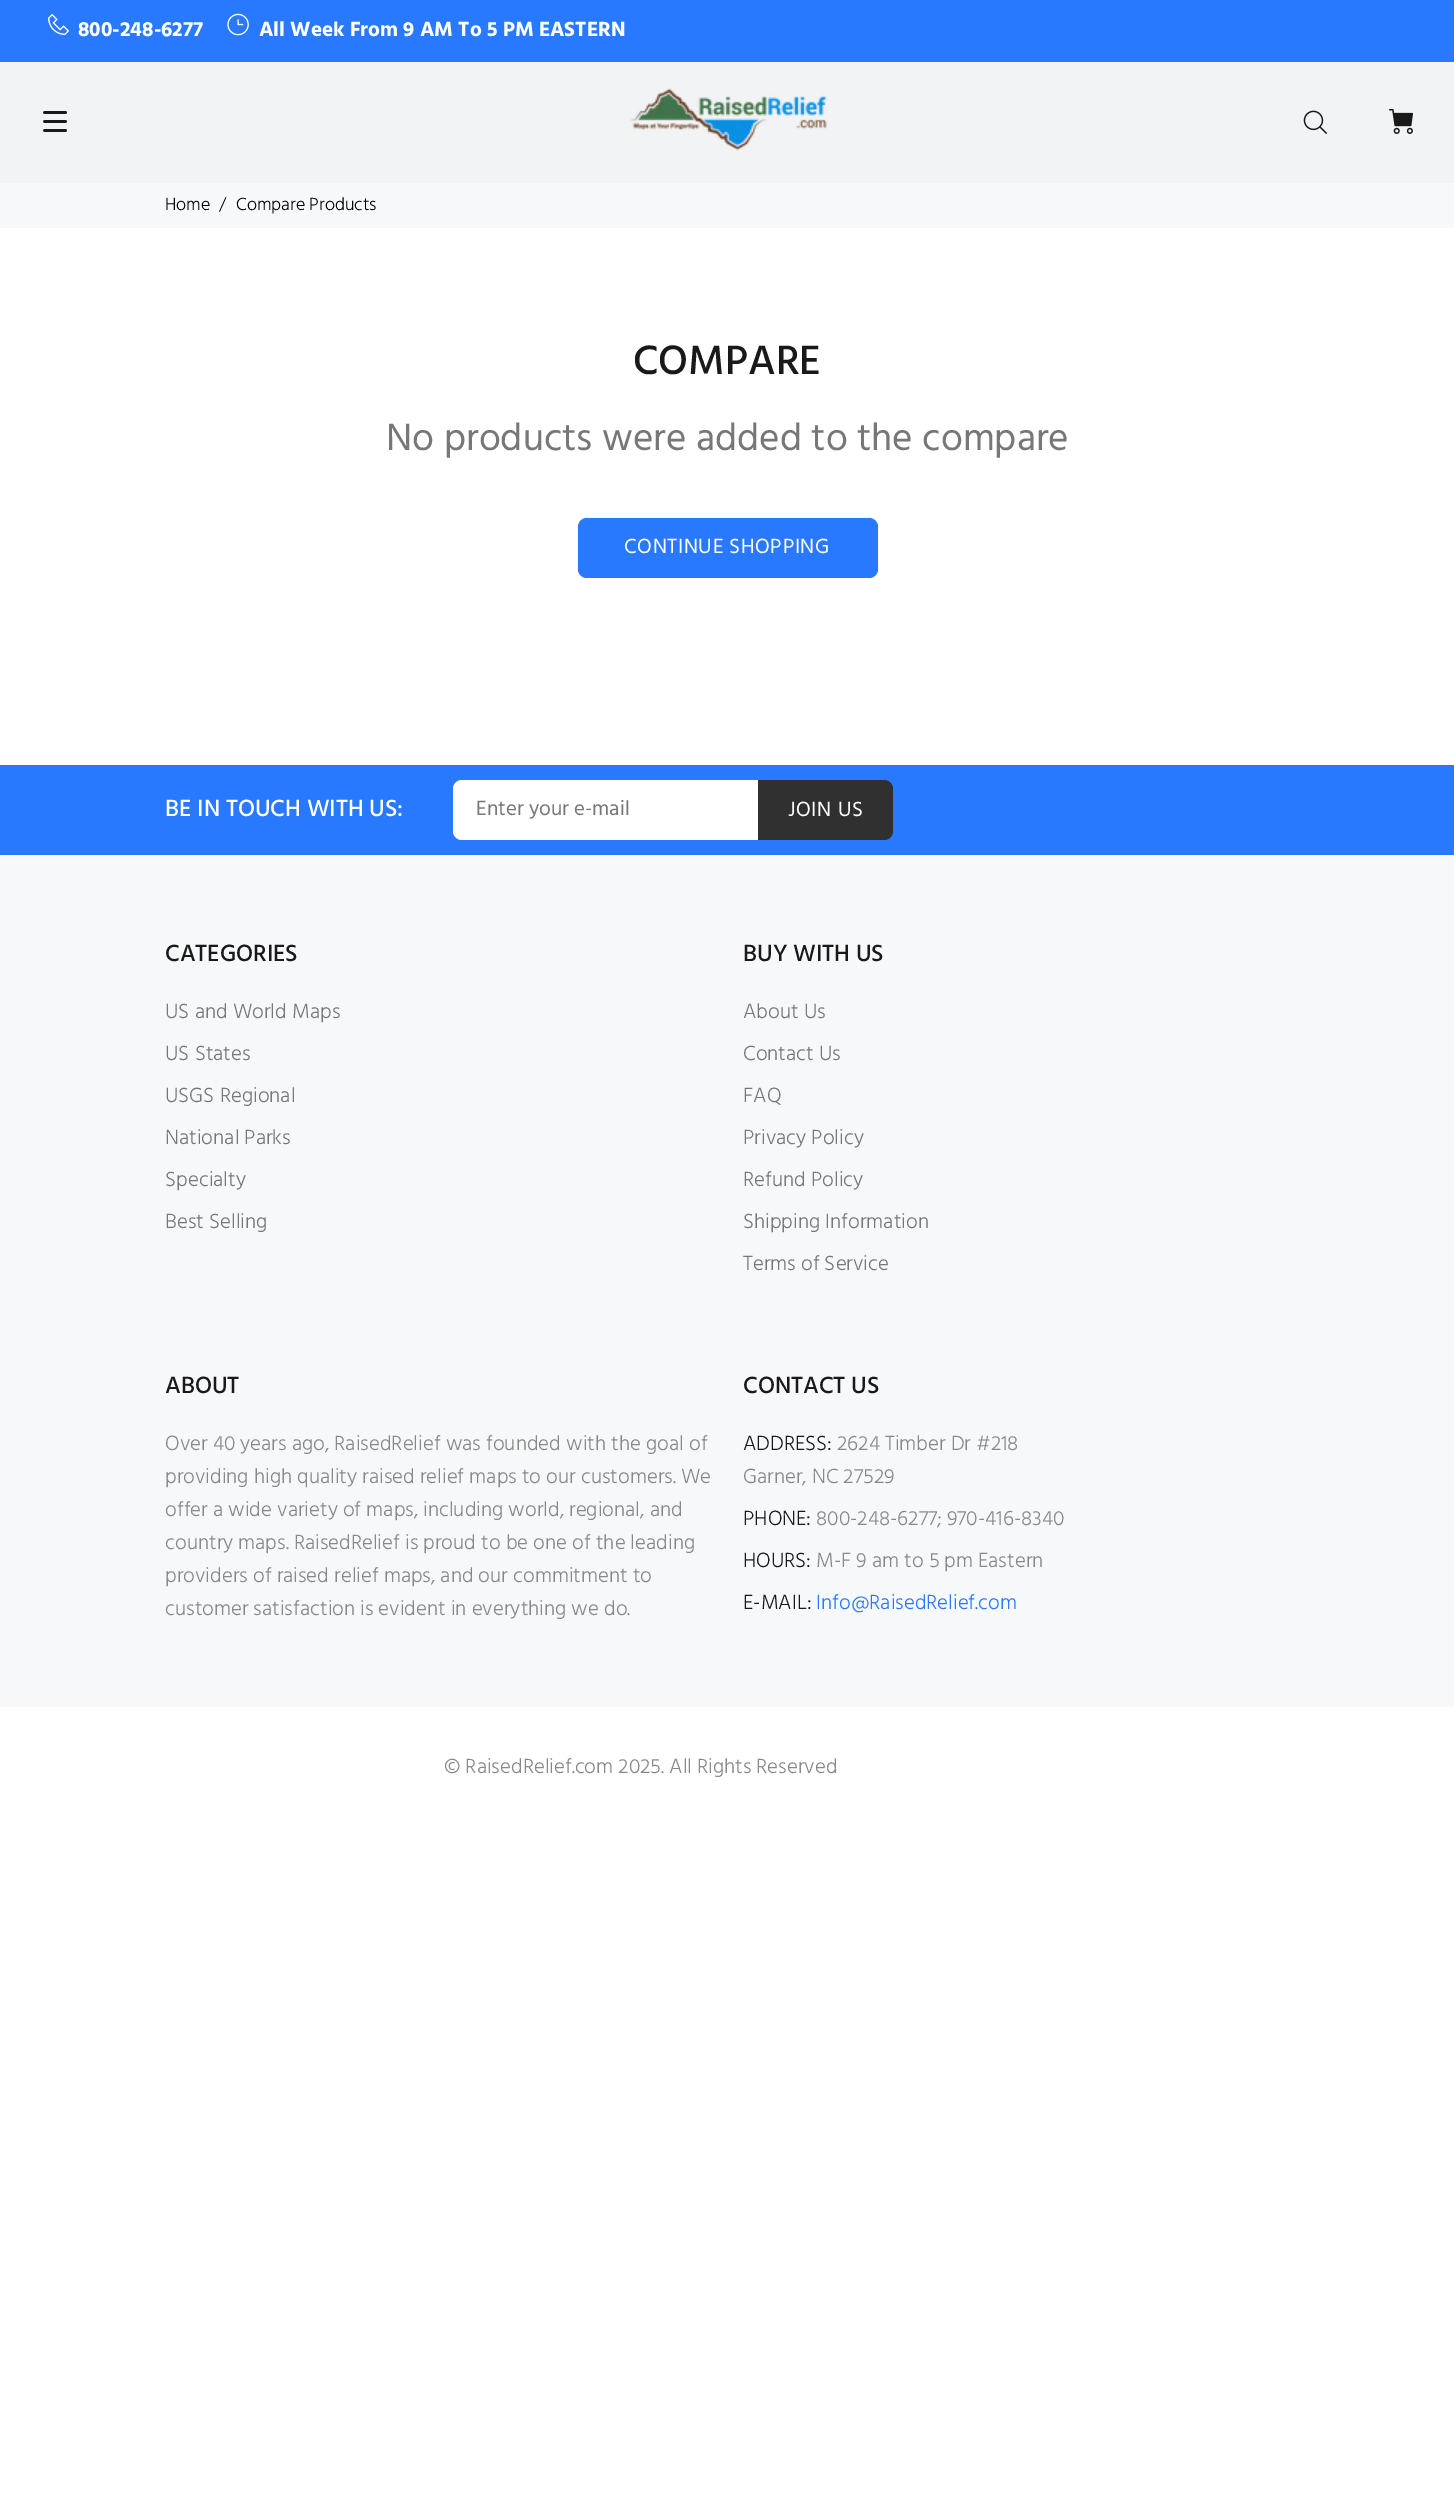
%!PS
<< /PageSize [1454 2499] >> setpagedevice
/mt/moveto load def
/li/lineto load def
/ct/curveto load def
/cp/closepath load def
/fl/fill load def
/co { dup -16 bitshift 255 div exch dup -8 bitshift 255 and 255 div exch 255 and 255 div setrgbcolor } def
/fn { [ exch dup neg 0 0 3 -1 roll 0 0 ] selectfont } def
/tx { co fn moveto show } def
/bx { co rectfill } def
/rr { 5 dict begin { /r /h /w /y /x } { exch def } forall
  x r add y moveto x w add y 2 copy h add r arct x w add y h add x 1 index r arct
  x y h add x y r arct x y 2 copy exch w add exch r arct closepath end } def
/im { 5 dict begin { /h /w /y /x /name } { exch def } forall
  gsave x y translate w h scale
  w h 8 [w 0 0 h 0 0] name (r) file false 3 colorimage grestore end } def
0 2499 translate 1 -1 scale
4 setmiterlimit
0 0 1454 2499 16#FFFFFF bx
0 62 1454 121 16#F2F3F4 bx
0 0 1454 62 16#2879FE bx
(media/1.raw) 48 14 21 21 im
(media/2.raw) 227 13 22 23 im
(media/3.raw) 43 111 24 21 im
(media/4.raw) 630 88 197 63 im
(media/5.raw) 1303 110 24 24 im
(media/6.raw) 1389 109 24 25 im
0 183 1454 45 16#F7F8FA bx
16#2879FE co
578 518 300 60 9 rr fl
0 855 1454 852 16#F7F8FA bx
0 765 1454 90 16#2879FE bx
16#FFFFFF co
462 780 mt 758 780 li 758 840 li 462 840 li 457 840 453 836 453 831 ct 453 789 li 453 784 457 780 462 780 ct cp fl
16#303030 co
758 780 mt 884 780 li 889 780 893 784 893 789 ct 893 831 li 893 836 889 840 884 840 ct 758 840 li cp fl
(800-248-6277) 78 36 /Hind-Bold 21 16#FFFFFF tx
(All Week From 9 AM To 5 PM EASTERN) 259 36 /Hind-Bold 21 16#FFFFFF tx
(Home) 165 210 /Hind-Light 18 16#000000 tx
(/) 219 210 /Hind-Light 18 16#000000 tx
(Compare Products) 236 210 /Hind-Light 18 16#000000 tx
(COMPARE) 633 374 /Hind-Medium 42 16#191919 tx
(No products were added to the compare) 386 450 /Hind-Regular 39 16#777777 tx
/Hind-Regular 21 fn
16#FFFFFF co
624 553 mt .6 0 (CONTINUE SHOPPING) ashow
(BE IN TOUCH WITH US:) 165 816 /Hind-Medium 24 16#FFFFFF tx
(Enter your e-mail) 476 815 /Hind-Regular 21 16#777777 tx
16#FFFFFF co
788 816 mt .6 0 (JOIN US) ashow
(CATEGORIES) 165 961 /Hind-Medium 24 16#191919 tx
(US and World Maps) 165 1018 /Hind-Light 21 16#777777 tx
(US States) 165 1060 /Hind-Light 21 16#777777 tx
(USGS Regional) 165 1102 /Hind-Light 21 16#777777 tx
(National Parks) 165 1144 /Hind-Light 21 16#777777 tx
(Specialty) 165 1186 /Hind-Light 21 16#777777 tx
(Best Selling) 165 1228 /Hind-Light 21 16#777777 tx
(BUY WITH US) 743 961 /Hind-Medium 24 16#191919 tx
(About Us) 743 1018 /Hind-Light 21 16#777777 tx
(Contact Us) 743 1060 /Hind-Light 21 16#777777 tx
(FAQ) 743 1102 /Hind-Light 21 16#777777 tx
(Privacy Policy) 743 1144 /Hind-Light 21 16#777777 tx
(Refund Policy) 743 1186 /Hind-Light 21 16#777777 tx
(Shipping Information) 743 1228 /Hind-Light 21 16#777777 tx
(Terms of Service) 743 1270 /Hind-Light 21 16#777777 tx
(ABOUT) 165 1393 /Hind-Medium 24 16#191919 tx
(Over 40 years ago, RaisedRelief was founded with the goal of) 165 1450 /Hind-Light 21 16#888888 tx
(providing high quality raised relief maps to our customers. We) 165 1483 /Hind-Light 21 16#888888 tx
(offer a wide variety of maps, including world, regional, and) 165 1516 /Hind-Light 21 16#888888 tx
(country maps. RaisedRelief is proud to be one of the leading) 165 1549 /Hind-Light 21 16#888888 tx
(providers of raised relief maps, and our commitment to) 165 1582 /Hind-Light 21 16#888888 tx
(customer satisfaction is evident in everything we do.) 165 1615 /Hind-Light 21 16#888888 tx
(CONTACT US) 743 1393 /Hind-Medium 24 16#191919 tx
(ADDRESS:) 743 1450 /Hind-Light 21 16#191919 tx
(2624 Timber Dr #218) 837 1450 /Hind-Light 21 16#888888 tx
(Garner, NC 27529) 743 1483 /Hind-Light 21 16#888888 tx
(PHONE:) 743 1525 /Hind-Light 21 16#191919 tx
(800-248-6277; 970-416-8340) 816 1525 /Hind-Light 21 16#888888 tx
(HOURS:) 743 1567 /Hind-Light 21 16#191919 tx
(M-F 9 am to 5 pm Eastern) 816 1567 /Hind-Light 21 16#888888 tx
(E-MAIL:) 743 1609 /Hind-Light 21 16#191919 tx
(Info@RaisedRelief.com) 816 1609 /Hind-Light 21 16#2879FE tx
(© RaisedRelief.com 2025. All Rights Reserved) 444 1773 /Hind-Light 21 16#888888 tx
showpage
